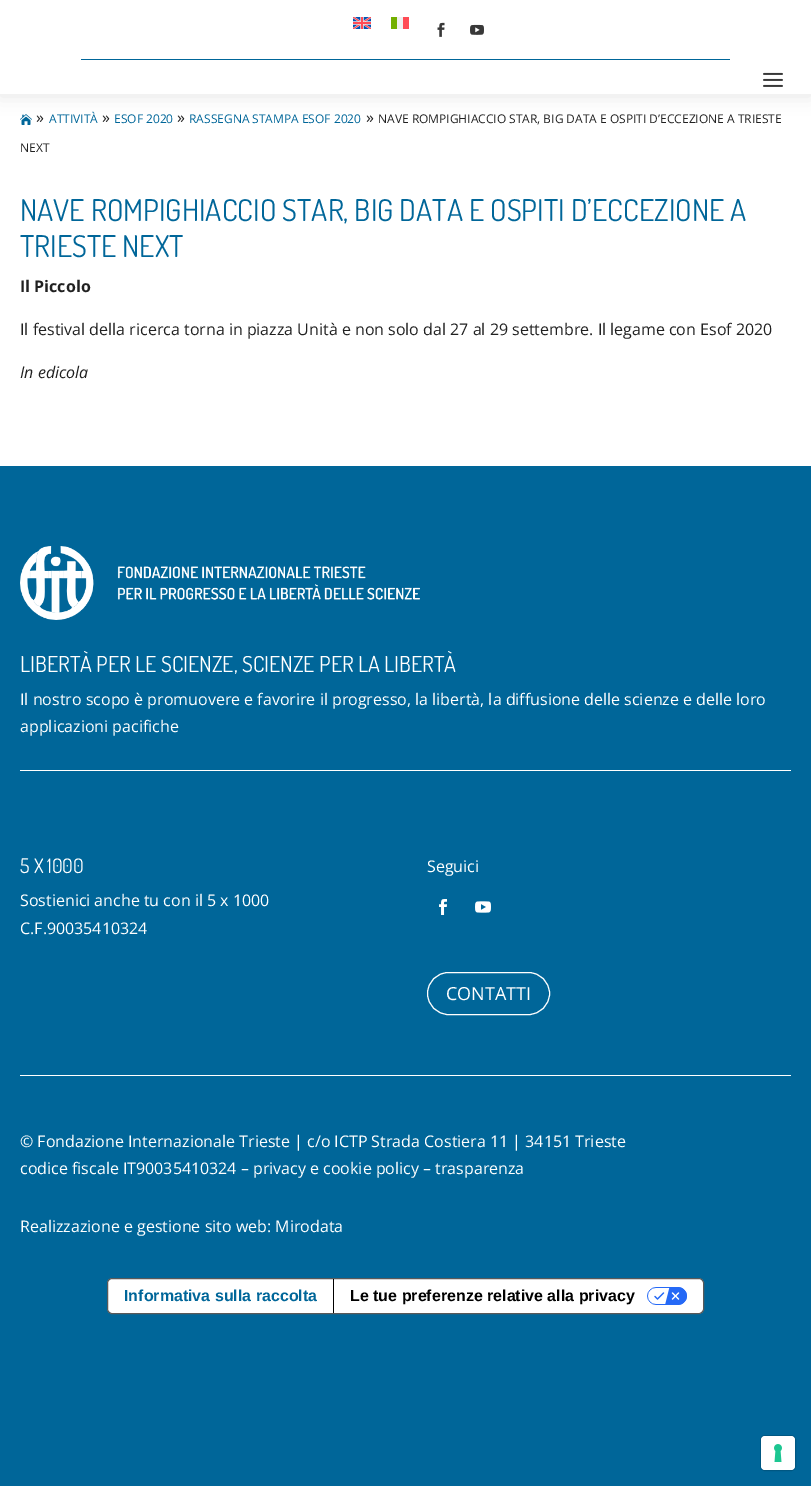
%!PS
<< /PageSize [811 1486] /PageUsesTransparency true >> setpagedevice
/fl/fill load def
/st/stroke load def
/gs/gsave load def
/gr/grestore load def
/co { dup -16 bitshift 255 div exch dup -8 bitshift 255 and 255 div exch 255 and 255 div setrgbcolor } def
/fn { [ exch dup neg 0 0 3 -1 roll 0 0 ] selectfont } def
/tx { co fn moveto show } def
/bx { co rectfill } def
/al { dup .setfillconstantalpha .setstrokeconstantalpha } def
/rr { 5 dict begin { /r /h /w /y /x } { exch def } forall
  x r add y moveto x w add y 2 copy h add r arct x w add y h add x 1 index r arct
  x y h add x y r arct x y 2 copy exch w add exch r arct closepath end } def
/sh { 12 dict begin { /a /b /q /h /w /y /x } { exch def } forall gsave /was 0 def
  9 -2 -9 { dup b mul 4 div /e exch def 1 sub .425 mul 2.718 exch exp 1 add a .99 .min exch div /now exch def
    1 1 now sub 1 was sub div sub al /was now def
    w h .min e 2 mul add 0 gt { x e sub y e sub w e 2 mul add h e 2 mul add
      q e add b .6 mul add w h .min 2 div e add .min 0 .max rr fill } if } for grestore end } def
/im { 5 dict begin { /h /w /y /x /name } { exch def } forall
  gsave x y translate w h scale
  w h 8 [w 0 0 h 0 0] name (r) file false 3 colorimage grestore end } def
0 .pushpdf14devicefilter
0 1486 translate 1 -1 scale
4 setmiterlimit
0 0 811 1486 16#006699 bx
0 94 811 372 16#FFFFFF bx
(media/5.raw) 20 114 12 11 im
16#000000 co
0 2 811 94 0 9 .1 sh
0 0 811 94 16#FFFFFF bx
81 59 649 1 16#006699 bx
(media/1.raw) 353 17 18 12 im
391 17 6 12 16#73AF00 bx
397 17 6 12 16#F0F0F0 bx
403 17 6 12 16#FF4B55 bx
(media/2.raw) 437 22 8 15 im
(media/3.raw) 470 24 14 11 im
(media/4.raw) 763 72 20 15 im
(media/6.raw) 20 546 400 74 im
20 770 771 1 16#FFFFFF bx
(media/7.raw) 439 899 8 16 im
(media/8.raw) 475 901 16 12 im
427.5 972.5 122 42 21 rr st
20 1075 771 1 16#FFFFFF bx
107.5 1278.5 596 35 4.5 rr gs fl gr
16#595959 co
st
333 1279 1 34 16#000000 bx
(media/9.raw) 647 1287 40 18 im
16#005782 co
760.5 1435.5 35 35 4.5 rr st
16#FFFFFF co
761 1436 34 34 4 rr fl
(media/10.raw) 774 1444 8 18 im
(») 36 123 /OpenSans-Regular 16 16#212121 tx
(ATTIVITÀ) 49 123 /OpenSans-Regular 12 16#006699 tx
(») 102 123 /OpenSans-Regular 16 16#212121 tx
(ESOF 2020) 114 123 /OpenSans-Regular 12 16#006699 tx
(») 177 123 /OpenSans-Regular 16 16#212121 tx
(RASSEGNA STAMPA ESOF 2020) 189 123 /OpenSans-Regular 12 16#006699 tx
(») 366 123 /OpenSans-Regular 16 16#212121 tx
(NAVE ROMPIGHIACCIO STAR, BIG DATA E OSPITI D’ECCEZIONE A TRIESTE) 378 123 /OpenSans-Regular 12 16#212121 tx
(NEXT) 20 152 /OpenSans-Regular 12 16#212121 tx
(NAVE ROMPIGHIACCIO STAR, BIG DATA E OSPITI D’ECCEZIONE A) 20 221 /Dosis-Regular 30 16#006699 tx
(TRIESTE NEXT) 20 257 /Dosis-Regular 30 16#006699 tx
(Il Piccolo) 20 292 /OpenSans-Bold 16 16#212121 tx
(Il festival della ricerca torna in piazza Unità e non solo dal 27 al 29 settembre. Il legame con Esof 2020) 20 335 /OpenSans-Regular 16 16#212121 tx
(In edicola) 20 378 /OpenSans-Italic 16 16#212121 tx
(LIBERTÀ PER LE SCIENZE, SCIENZE PER LA LIBERTÀ) 20 672 /Dosis-Regular 22 16#FFFFFF tx
(Il nostro scopo è promuovere e favorire il progresso, la libertà, la diffusione delle scienze e delle loro) 20 705 /OpenSans-Regular 16 16#FFFFFF tx
(applicazioni pacifiche) 20 732 /OpenSans-Regular 16 16#FFFFFF tx
(5 X 1000) 20 873 /Dosis-Regular 20 16#FFFFFF tx
(Sostienici anche tu con il 5 x 1000) 20 906 /OpenSans-Regular 16 16#FFFFFF tx
(C.F.90035410324) 20 934 /OpenSans-Regular 16 16#FFFFFF tx
(Seguici) 427 872 /OpenSans-Regular 16 16#FFFFFF tx
(CONTATTI) 446 1000 /OpenSans-Regular 18 16#FFFFFF tx
(© Fondazione Internazionale Trieste | c/o ICTP Strada Costiera 11 | 34151 Trieste) 20 1147 /OpenSans-Regular 16 16#FFFFFF tx
(codice fiscale IT90035410324 – privacy e cookie policy – trasparenza) 20 1174 /OpenSans-Regular 16 16#FFFFFF tx
(Realizzazione e gestione sito web: Mirodata) 20 1232 /OpenSans-Regular 16 16#FFFFFF tx
(Informativa sulla raccolta) 124 1301 /LiberationSans-Bold 16 16#006699 tx
(Le tue preferenze relative alla privacy) 350 1301 /LiberationSans-Bold 16 16#000000 tx
.poppdf14devicefilter showpage
